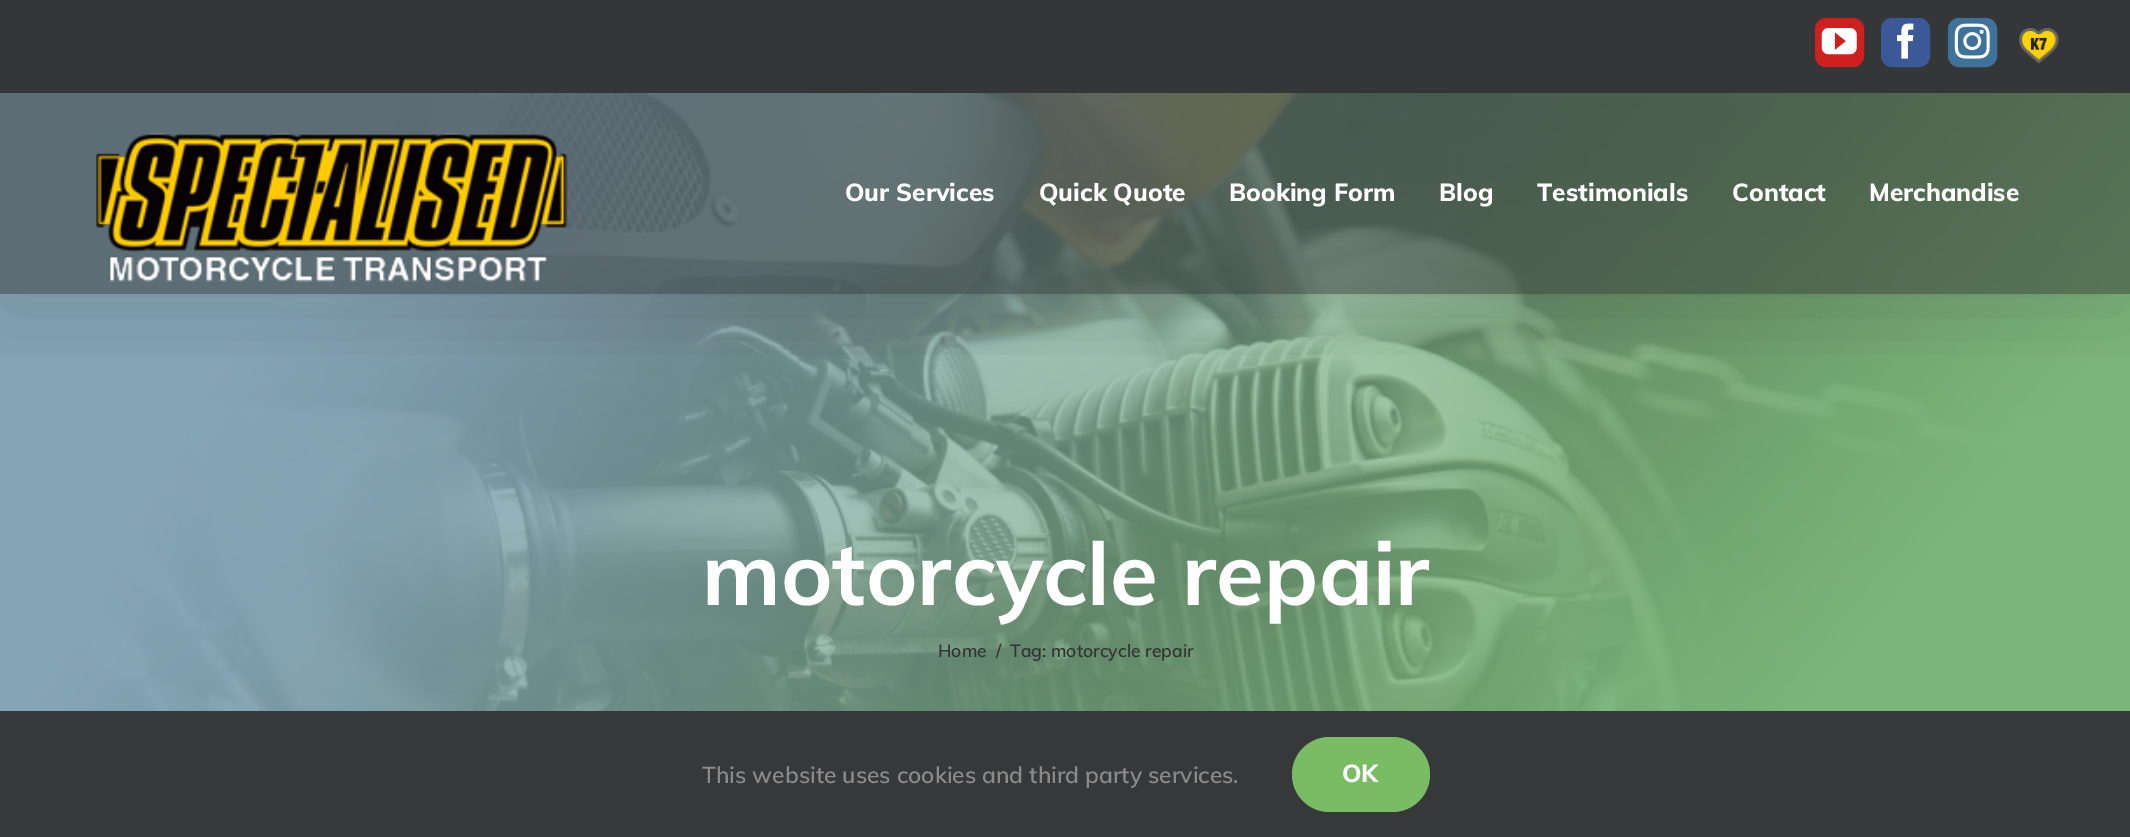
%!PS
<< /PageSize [2130 837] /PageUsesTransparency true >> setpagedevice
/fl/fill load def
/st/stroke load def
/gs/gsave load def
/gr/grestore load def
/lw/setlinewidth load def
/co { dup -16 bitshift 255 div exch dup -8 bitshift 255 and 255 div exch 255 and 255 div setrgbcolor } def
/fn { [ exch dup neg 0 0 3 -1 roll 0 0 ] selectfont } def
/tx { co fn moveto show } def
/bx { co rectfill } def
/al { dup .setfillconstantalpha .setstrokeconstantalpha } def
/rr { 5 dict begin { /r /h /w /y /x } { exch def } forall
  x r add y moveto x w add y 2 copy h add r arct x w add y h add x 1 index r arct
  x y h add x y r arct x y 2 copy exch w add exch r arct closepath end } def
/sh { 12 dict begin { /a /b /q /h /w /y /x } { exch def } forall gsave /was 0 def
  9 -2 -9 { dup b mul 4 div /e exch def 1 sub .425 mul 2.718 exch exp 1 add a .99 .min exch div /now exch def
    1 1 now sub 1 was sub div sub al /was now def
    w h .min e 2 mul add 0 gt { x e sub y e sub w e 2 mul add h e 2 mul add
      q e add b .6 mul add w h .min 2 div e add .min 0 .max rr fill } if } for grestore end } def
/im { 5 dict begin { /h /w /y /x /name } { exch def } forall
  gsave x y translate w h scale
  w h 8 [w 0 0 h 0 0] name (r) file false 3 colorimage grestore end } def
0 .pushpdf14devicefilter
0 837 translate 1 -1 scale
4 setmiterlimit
0 0 2130 837 16#FFFFFF bx
(media/6.raw) 0 93 2130 618 im
gs
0 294 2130 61 rectclip
16#000000 co
4 21 2124 287 0 44 .14 sh
gr
0 0 2130 93 16#353637 bx
16#CD201F co
1816 19 47 47 10 rr gs fl gr
2 lw
st
(media/1.raw) 1821 28 36 27 im
16#3B5998 co
1882 19 47 47 10 rr gs fl gr
st
(media/2.raw) 1897 23 17 36 im
16#3F729B co
1949 19 47 47 10 rr gs fl gr
st
(media/3.raw) 1954 23 36 36 im
(media/4.raw) 2019 28 40 36 im
0.5 al
0 93 2130 201 16#353637 bx
1 al
(media/5.raw) 96 132 472 150 im
0 711 2130 126 16#363839 bx
16#7ABC64 co
1292 737 138 75 37.5 rr fl
(Our Services) 845 201 /Muli-ExtraBold 24.5 16#FFFFFF tx
(Quick Quote) 1039 201 /Muli-ExtraBold 24.5 16#FFFFFF tx
(Booking Form) 1229 201 /Muli-ExtraBold 24.5 16#FFFFFF tx
(Blog) 1439 201 /Muli-ExtraBold 24.5 16#FFFFFF tx
(Testimonials) 1537 201 /Muli-ExtraBold 24.5 16#FFFFFF tx
(Contact) 1732 201 /Muli-ExtraBold 24.5 16#FFFFFF tx
(Merchandise) 1869 201 /Muli-ExtraBold 24.5 16#FFFFFF tx
(motorcycle repair) 702 605 /Muli-Bold 87.5 16#FFFFFF tx
(Home) 938 657 /Muli-SemiBold 17.5 16#333333 tx
(/) 996 657 /Muli-SemiBold 17.5 16#333333 tx
(Tag: motorcycle repair) 1010 657 /Muli-SemiBold 17.5 16#333333 tx
(This website uses cookies and third party services.) 702 783 /Muli-SemiBold 22.75 16#8C8989 tx
(OK) 1342 782 /Muli-ExtraBold 24.5 16#FFFFFF tx
.poppdf14devicefilter showpage
